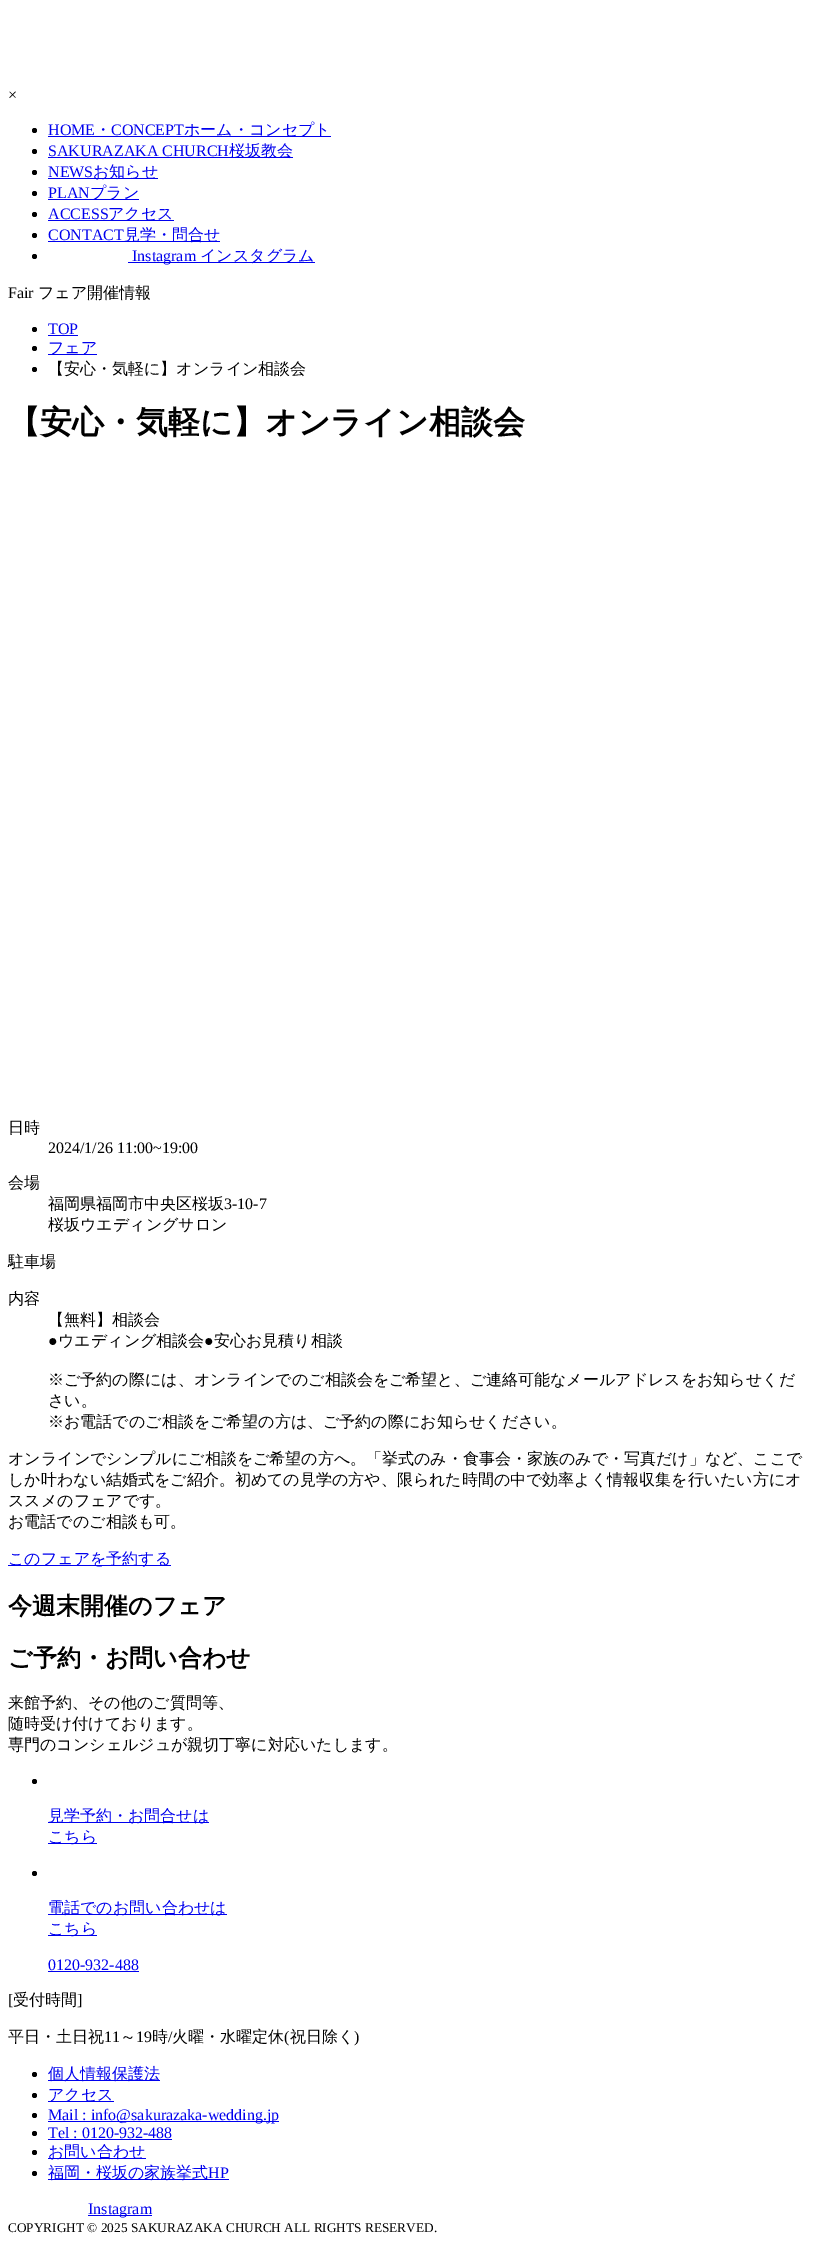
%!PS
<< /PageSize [815 2246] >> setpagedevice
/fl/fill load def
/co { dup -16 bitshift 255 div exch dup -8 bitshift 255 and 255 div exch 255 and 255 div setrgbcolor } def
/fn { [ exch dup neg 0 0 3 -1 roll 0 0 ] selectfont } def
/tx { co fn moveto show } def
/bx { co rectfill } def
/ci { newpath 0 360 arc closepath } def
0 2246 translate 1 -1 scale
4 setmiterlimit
0 0 815 2246 16#FFFFFF bx
16#000000 co
34.5 130.5 2.5 ci fl
48 136 283 1 16#0000EE bx
16#000000 co
34.5 151.5 2.5 ci fl
48 157 245 1 16#0000EE bx
16#000000 co
34.5 172.5 2.5 ci fl
48 178 110 1 16#0000EE bx
16#000000 co
34.5 193.5 2.5 ci fl
48 199 91 1 16#0000EE bx
16#000000 co
34.5 214.5 2.5 ci fl
48 220 126 1 16#0000EE bx
16#000000 co
34.5 235.5 2.5 ci fl
48 241 172 1 16#0000EE bx
16#000000 co
34.5 256.5 2.5 ci fl
128 262 187 1 16#0000EE bx
16#000000 co
34.5 329.5 2.5 ci fl
48 335 30 1 16#0000EE bx
16#000000 co
34.5 348.5 2.5 ci fl
48 354 49 1 16#0000EE bx
16#000000 co
34.5 369.5 2.5 ci fl
8 1565 163 1 16#0000EE bx
16#000000 co
34.5 1781.5 2.5 ci fl
48 1822 161 1 16#0000EE bx
48 1843 49 1 16#0000EE bx
16#000000 co
34.5 1873.5 2.5 ci fl
48 1914 179 1 16#0000EE bx
48 1935 49 1 16#0000EE bx
48 1971 91 1 16#0000EE bx
16#000000 co
34.5 2074.5 2.5 ci fl
48 2080 112 1 16#0000EE bx
16#000000 co
34.5 2095.5 2.5 ci fl
48 2101 66 1 16#0000EE bx
16#000000 co
34.5 2115.5 2.5 ci fl
48 2121 231 1 16#0000EE bx
16#000000 co
34.5 2133.5 2.5 ci fl
48 2139 124 1 16#0000EE bx
16#000000 co
34.5 2152.5 2.5 ci fl
48 2158 98 1 16#0000EE bx
16#000000 co
34.5 2173.5 2.5 ci fl
48 2179 181 1 16#0000EE bx
88 2215 64 1 16#0000EE bx
(×) 8 100 /LiberationSerif-Regular 16 16#000000 tx
(HOME) 48 135 /LiberationSerif-Regular 16 16#0000EE tx
(・) 95 135 /WenQuanYiZenHei-Medium 16 16#0000EE tx
(CONCEPT) 111 135 /LiberationSerif-Regular 16 16#0000EE tx
(ホーム・コンセプト) 184 135 /WenQuanYiZenHei-Medium 16 16#0000EE tx
(SAKURAZAKA CHURCH) 48 156 /LiberationSerif-Regular 16 16#0000EE tx
(桜坂教会) 229 156 /WenQuanYiZenHei-Medium 16 16#0000EE tx
(NEWS) 48 177 /LiberationSerif-Regular 16 16#0000EE tx
(お知らせ) 93 177 /WenQuanYiZenHei-Medium 16 16#0000EE tx
(PLAN) 48 198 /LiberationSerif-Regular 16 16#0000EE tx
(プラン) 90 198 /WenQuanYiZenHei-Medium 16 16#0000EE tx
(ACCESS) 48 219 /LiberationSerif-Regular 16 16#0000EE tx
(アクセス) 108 219 /WenQuanYiZenHei-Medium 16 16#0000EE tx
(CONTACT) 48 240 /LiberationSerif-Regular 16 16#0000EE tx
(見学・問合せ) 124 240 /WenQuanYiZenHei-Medium 16 16#0000EE tx
(Instagram) 132 261 /LiberationSerif-Regular 16 16#0000EE tx
(インスタグラム) 200 261 /WenQuanYiZenHei-Medium 16 16#0000EE tx
(Fair) 8 298 /LiberationSerif-Regular 16 16#000000 tx
(フェア開催情報) 38 298 /WenQuanYiZenHei-Medium 16 16#000000 tx
(TOP) 48 334 /LiberationSerif-Regular 16 16#0000EE tx
(フェア) 48 353 /WenQuanYiZenHei-Medium 16 16#0000EE tx
(【安心・気軽に】オンライン相談会) 48 374 /WenQuanYiZenHei-Medium 16 16#000000 tx
(【安心・気軽に】オンライン相談会) 8 433 /WenQuanYiZenHei-Bold 32 16#000000 tx
(日時) 8 1133 /WenQuanYiZenHei-Medium 16 16#000000 tx
(2024/1/26 11:00~19:00) 48 1153 /LiberationSerif-Regular 16 16#000000 tx
(会場) 8 1188 /WenQuanYiZenHei-Medium 16 16#000000 tx
(福岡県福岡市中央区桜坂) 48 1209 /WenQuanYiZenHei-Medium 16 16#000000 tx
(3-10-7) 224 1209 /LiberationSerif-Regular 16 16#000000 tx
(桜坂ウエディングサロン) 48 1230 /WenQuanYiZenHei-Medium 16 16#000000 tx
(駐車場) 8 1267 /WenQuanYiZenHei-Medium 16 16#000000 tx
(内容) 8 1304 /WenQuanYiZenHei-Medium 16 16#000000 tx
(【無料】相談会) 48 1325 /WenQuanYiZenHei-Medium 16 16#000000 tx
(●) 48 1346 /LiberationSerif-Regular 16 16#000000 tx
(ウエディング相談会) 58 1346 /WenQuanYiZenHei-Medium 16 16#000000 tx
(●) 204 1346 /LiberationSerif-Regular 16 16#000000 tx
(安心お見積り相談) 214 1346 /WenQuanYiZenHei-Medium 16 16#000000 tx
(※ご予約の際には、オンラインでのご相談会をご希望と、ご連絡可能なメールアドレスをお知らせくだ) 48 1385 /WenQuanYiZenHei-Medium 16 16#000000 tx
(さい。) 48 1406 /WenQuanYiZenHei-Medium 16 16#000000 tx
(※お電話でのご相談をご希望の方は、ご予約の際にお知らせください。) 48 1427 /WenQuanYiZenHei-Medium 16 16#000000 tx
(オンラインでシンプルにご相談をご希望の方へ。「挙式のみ・食事会・家族のみで・写真だけ」など、ここで) 8 1464 /WenQuanYiZenHei-Medium 16 16#000000 tx
(しか叶わない結婚式をご紹介。初めての見学の方や、限られた時間の中で効率よく情報収集を行いたい方にオ) 8 1485 /WenQuanYiZenHei-Medium 16 16#000000 tx
(ススメのフェアです。) 8 1506 /WenQuanYiZenHei-Medium 16 16#000000 tx
(お電話でのご相談も可。) 8 1527 /WenQuanYiZenHei-Medium 16 16#000000 tx
(このフェアを予約する) 8 1564 /WenQuanYiZenHei-Medium 16 16#0000EE tx
(今週末開催のフェア) 8 1614 /WenQuanYiZenHei-Bold 24 16#000000 tx
(ご予約・お問い合わせ) 8 1666 /WenQuanYiZenHei-Bold 24 16#000000 tx
(来館予約、その他のご質問等、) 8 1708 /WenQuanYiZenHei-Medium 16 16#000000 tx
(随時受け付けております。) 8 1729 /WenQuanYiZenHei-Medium 16 16#000000 tx
(専門のコンシェルジュが親切丁寧に対応いたします。) 8 1750 /WenQuanYiZenHei-Medium 16 16#000000 tx
(見学予約・お問合せは) 48 1821 /WenQuanYiZenHei-Medium 16 16#0000EE tx
(こちら) 48 1842 /WenQuanYiZenHei-Medium 16 16#0000EE tx
(電話でのお問い合わせは) 48 1913 /WenQuanYiZenHei-Medium 16 16#0000EE tx
(こちら) 48 1934 /WenQuanYiZenHei-Medium 16 16#0000EE tx
(0120-932-488) 48 1970 /LiberationSerif-Regular 16 16#0000EE tx
([) 8 2005 /LiberationSerif-Regular 16 16#000000 tx
(受付時間) 13 2005 /WenQuanYiZenHei-Medium 16 16#000000 tx
(]) 77 2005 /LiberationSerif-Regular 16 16#000000 tx
(平日・土日祝) 8 2042 /WenQuanYiZenHei-Medium 16 16#000000 tx
(11) 104 2042 /LiberationSerif-Regular 16 16#000000 tx
(～) 120 2042 /WenQuanYiZenHei-Medium 16 16#000000 tx
(19) 136 2042 /LiberationSerif-Regular 16 16#000000 tx
(時) 152 2042 /WenQuanYiZenHei-Medium 16 16#000000 tx
(/) 168 2042 /LiberationSerif-Regular 16 16#000000 tx
(火曜・水曜定休) 172 2042 /WenQuanYiZenHei-Medium 16 16#000000 tx
(\() 284 2042 /LiberationSerif-Regular 16 16#000000 tx
(祝日除く) 290 2042 /WenQuanYiZenHei-Medium 16 16#000000 tx
(\)) 354 2042 /LiberationSerif-Regular 16 16#000000 tx
(個人情報保護法) 48 2079 /WenQuanYiZenHei-Medium 16 16#0000EE tx
(アクセス) 48 2100 /WenQuanYiZenHei-Medium 16 16#0000EE tx
(Mail : info@sakurazaka-wedding.jp) 48 2120 /LiberationSerif-Regular 16 16#0000EE tx
(Tel : 0120-932-488) 48 2138 /LiberationSerif-Regular 16 16#0000EE tx
(お問い合わせ) 48 2157 /WenQuanYiZenHei-Medium 16 16#0000EE tx
(福岡・桜坂の家族挙式) 48 2178 /WenQuanYiZenHei-Medium 16 16#0000EE tx
(HP) 208 2178 /LiberationSerif-Regular 16 16#0000EE tx
(Instagram) 88 2214 /LiberationSerif-Regular 16 16#0000EE tx
(COPYRIGHT © 2025 SAKURAZAKA CHURCH ALL RIGHTS RESERVED.) 8 2232 /LiberationSerif-Regular 13.3 16#000000 tx
showpage
